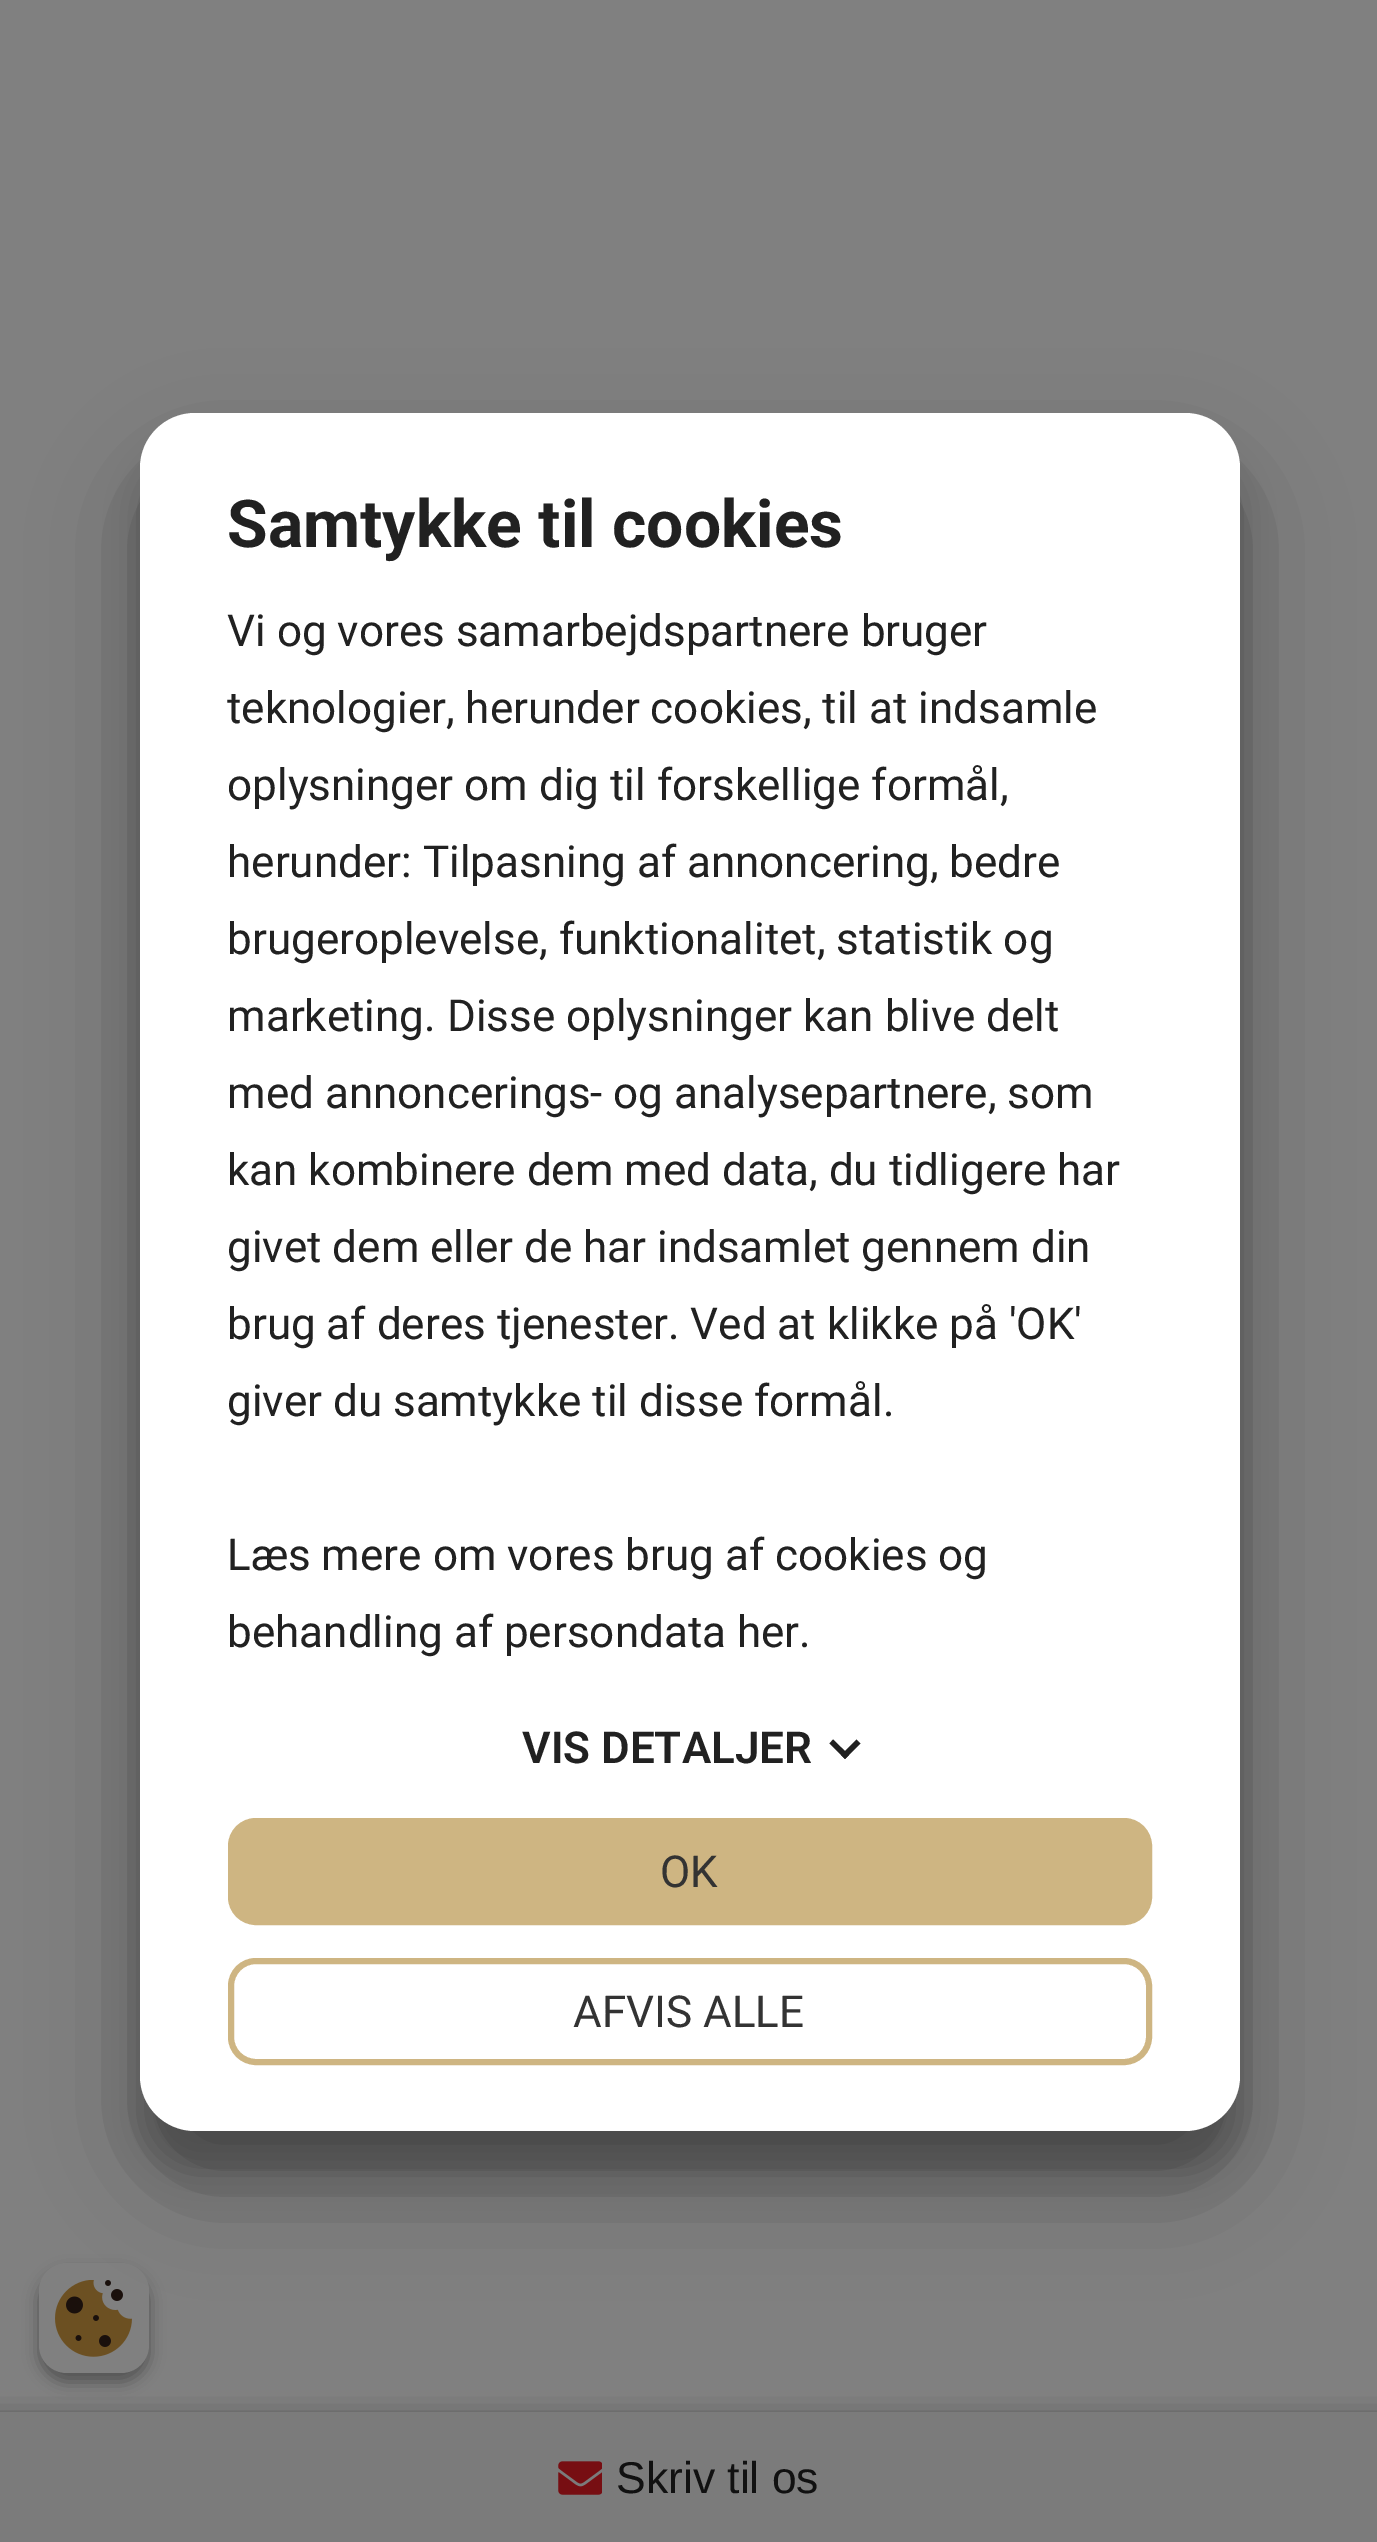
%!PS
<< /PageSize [1377 2542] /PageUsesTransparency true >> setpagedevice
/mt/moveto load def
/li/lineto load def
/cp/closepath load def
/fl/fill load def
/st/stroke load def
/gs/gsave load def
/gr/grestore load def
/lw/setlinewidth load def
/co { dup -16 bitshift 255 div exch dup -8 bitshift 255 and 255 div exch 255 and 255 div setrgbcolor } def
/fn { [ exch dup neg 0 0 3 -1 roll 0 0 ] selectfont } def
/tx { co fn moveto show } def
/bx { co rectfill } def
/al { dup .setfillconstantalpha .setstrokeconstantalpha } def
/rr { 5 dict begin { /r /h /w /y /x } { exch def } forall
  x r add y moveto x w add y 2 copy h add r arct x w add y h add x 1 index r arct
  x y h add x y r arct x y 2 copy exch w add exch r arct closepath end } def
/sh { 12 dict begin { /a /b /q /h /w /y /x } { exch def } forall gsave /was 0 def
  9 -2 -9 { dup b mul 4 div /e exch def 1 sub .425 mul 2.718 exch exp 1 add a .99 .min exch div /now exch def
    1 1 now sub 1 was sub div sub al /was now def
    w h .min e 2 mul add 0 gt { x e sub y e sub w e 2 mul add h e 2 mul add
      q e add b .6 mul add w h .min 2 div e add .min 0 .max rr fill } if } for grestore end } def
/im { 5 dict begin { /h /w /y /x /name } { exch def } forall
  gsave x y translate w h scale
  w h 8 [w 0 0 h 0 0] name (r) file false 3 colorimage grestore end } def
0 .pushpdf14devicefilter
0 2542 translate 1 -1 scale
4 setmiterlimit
0 0 1377 2542 16#808080 bx
16#000000 co
140 454 1100 1719 55 16.5 .22 sh
39 2272 110 110 28 8 .23 sh
39 2272 110 110 28 8 .16 sh
16#808080 co
39 2263 110 110 28 rr fl
(media/1.raw) 55 2280 77 77 im
16#000000 co
140 465 1100 1719 55 52 .3 sh
16#FFFFFF co
140 413 1100 1718 55 rr fl
16#212121 co
856.5 1739.5 mt 860.5 1743.5 li 845 1759 li 841 1755 li cp fl
833 1739.5 mt 849 1755 li 845 1759 li 829.5 1743.5 li cp fl
16#CEB582 co
231 1821 918 101 25 rr gs fl gr
6 lw
st
231 1961 918 101 25 rr st
16#000000 co
-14 2428 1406 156 0 14 1 sh
0 2412 1377 130 16#7B7B7B bx
(media/2.raw) 558 2461 44 34 im
(Samtykke til cookies) 227 547 /Roboto-Bold 66 16#212121 tx
(Vi og vores samarbejdspartnere bruger) 227 646 /Roboto-Regular 44 16#212121 tx
(teknologier, herunder cookies, til at indsamle) 227 723 /Roboto-Regular 44 16#212121 tx
(oplysninger om dig til forskellige formål,) 227 800 /Roboto-Regular 44 16#212121 tx
(herunder: Tilpasning af annoncering, bedre) 227 877 /Roboto-Regular 44 16#212121 tx
(brugeroplevelse, funktionalitet, statistik og) 227 954 /Roboto-Regular 44 16#212121 tx
(marketing. Disse oplysninger kan blive delt) 227 1031 /Roboto-Regular 44 16#212121 tx
(med annoncerings- og analysepartnere, som) 227 1108 /Roboto-Regular 44 16#212121 tx
(kan kombinere dem med data, du tidligere har) 227 1185 /Roboto-Regular 44 16#212121 tx
(givet dem eller de har indsamlet gennem din) 227 1262 /Roboto-Regular 44 16#212121 tx
(brug af deres tjenester. Ved at klikke på 'OK') 227 1339 /Roboto-Regular 44 16#212121 tx
(giver du samtykke til disse formål.) 227 1416 /Roboto-Regular 44 16#212121 tx
(Læs mere om vores brug af cookies og) 227 1570 /Roboto-Regular 44 16#212121 tx
(behandling af persondata her.) 227 1647 /Roboto-Regular 44 16#212121 tx
(VIS DETALJER) 522 1763 /Roboto-SemiBold 44 16#212121 tx
(OK) 660 1887 /Roboto-Regular 44 16#333333 tx
(AFVIS ALLE) 573 2027 /Roboto-Regular 44 16#333333 tx
(Skriv til os) 616 2493 /LiberationSans-Regular 44.5 16#111111 tx
.poppdf14devicefilter showpage
